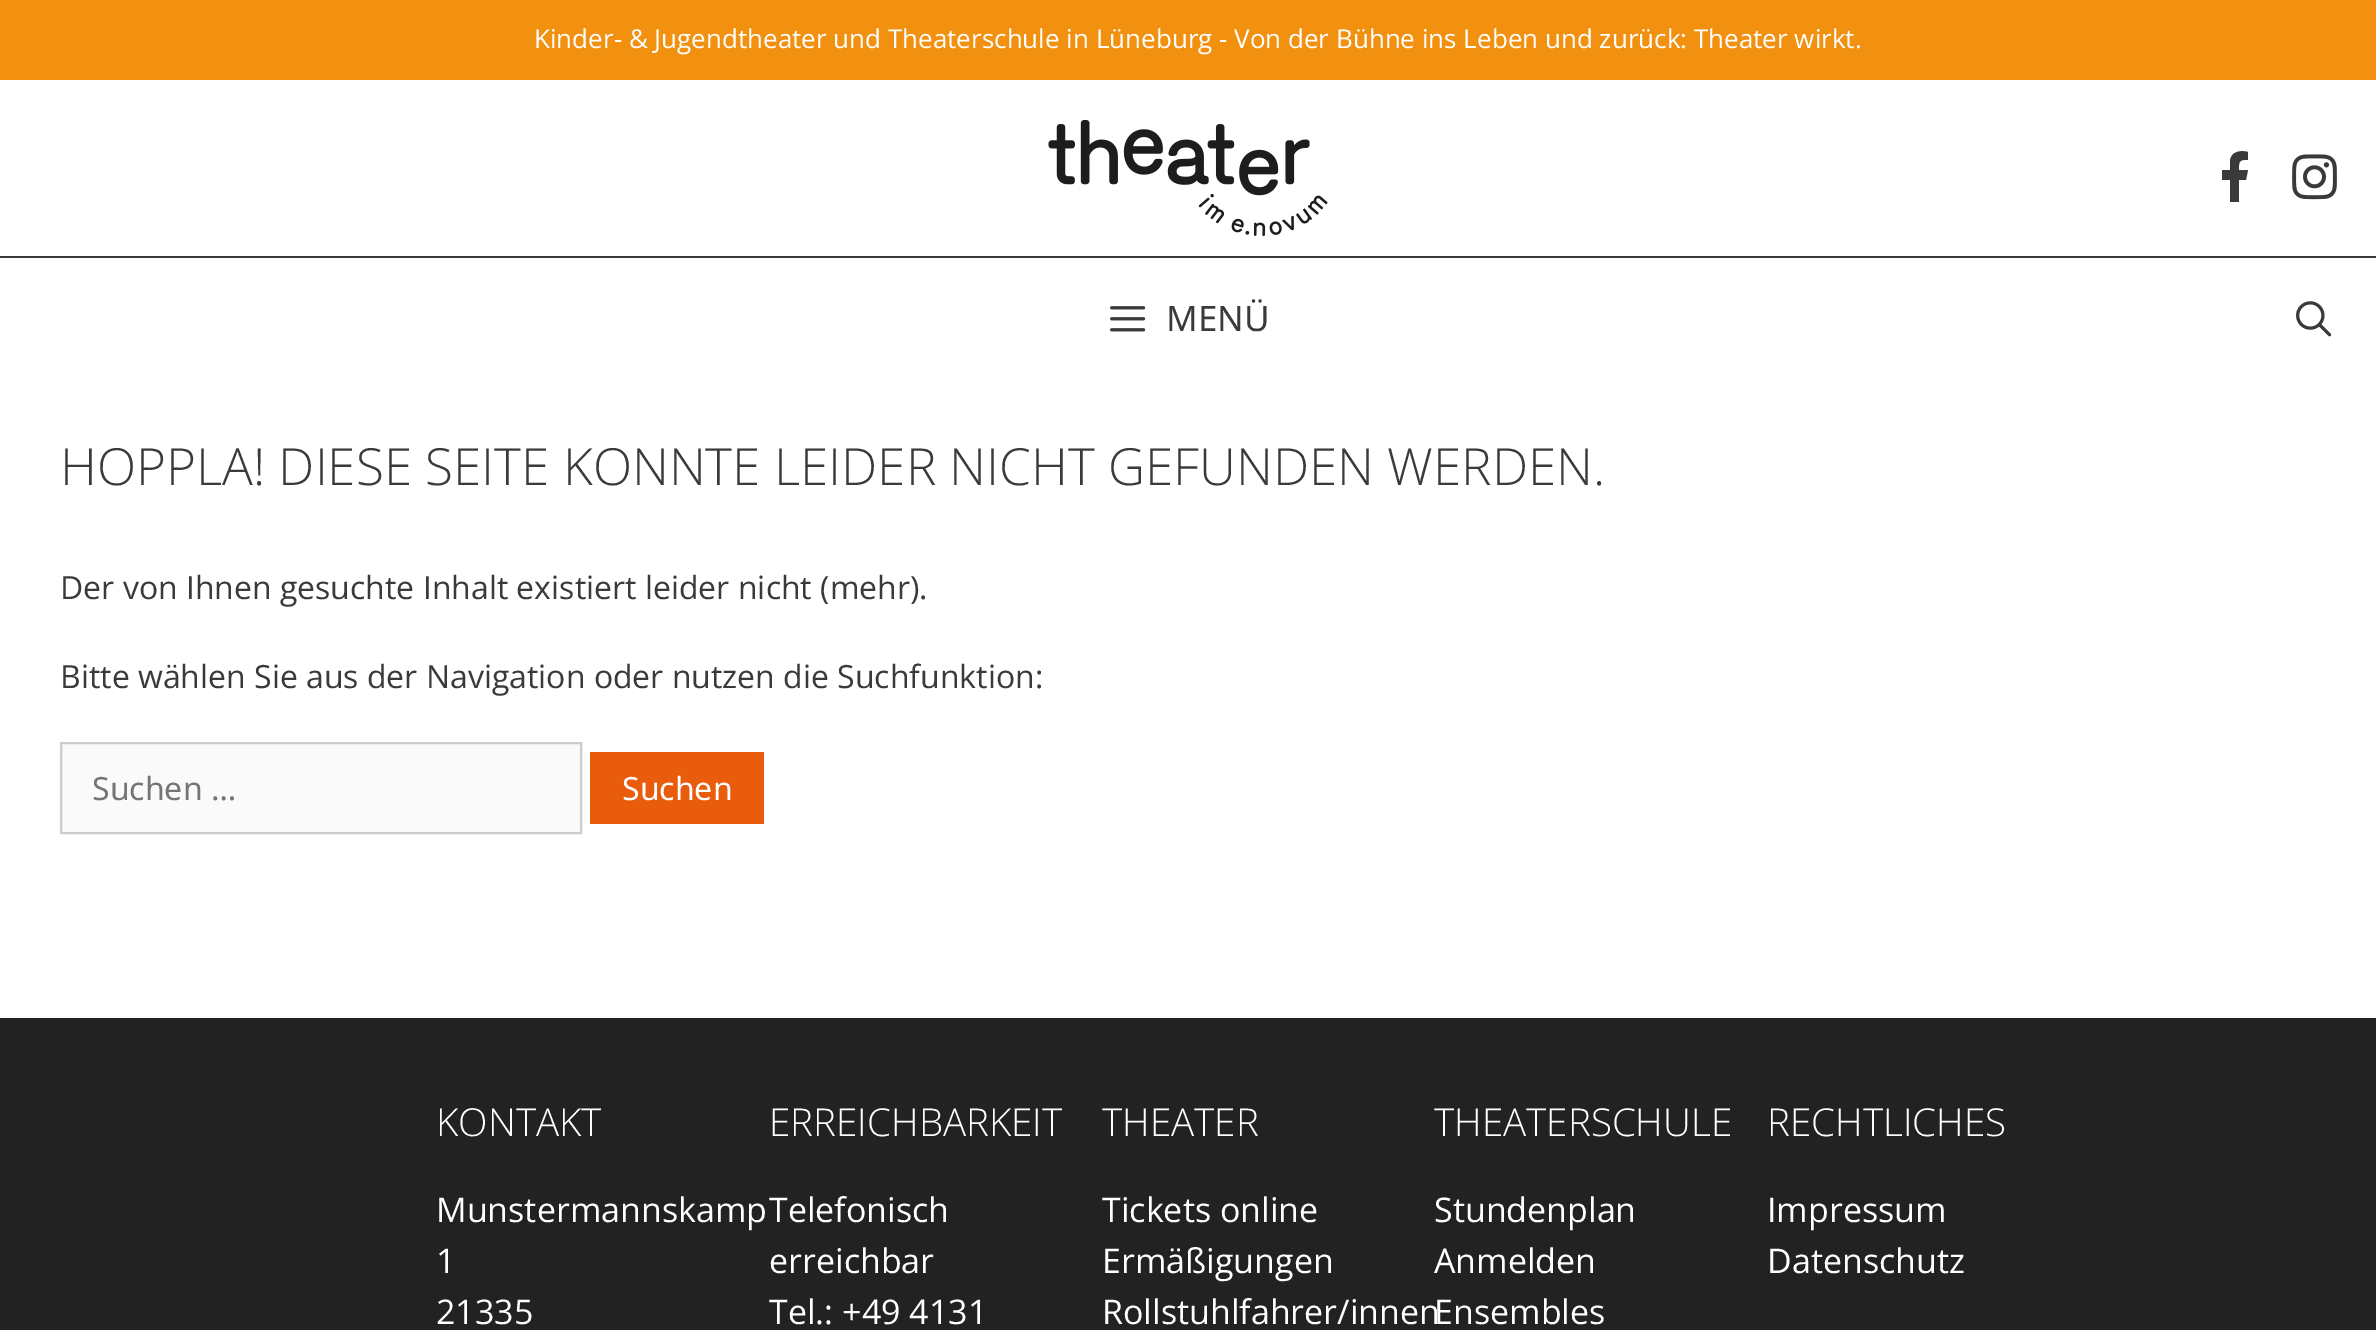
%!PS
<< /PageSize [2376 1330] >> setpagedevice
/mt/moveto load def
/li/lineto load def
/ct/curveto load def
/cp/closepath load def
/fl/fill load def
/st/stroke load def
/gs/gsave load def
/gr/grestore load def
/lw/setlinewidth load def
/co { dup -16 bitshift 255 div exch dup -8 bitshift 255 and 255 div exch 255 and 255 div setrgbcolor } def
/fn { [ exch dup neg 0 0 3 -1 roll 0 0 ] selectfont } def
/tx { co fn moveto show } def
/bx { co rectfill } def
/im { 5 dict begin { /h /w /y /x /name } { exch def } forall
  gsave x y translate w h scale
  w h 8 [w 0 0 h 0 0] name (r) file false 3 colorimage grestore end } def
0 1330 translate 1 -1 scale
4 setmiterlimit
0 0 2376 1330 16#FFFFFF bx
0 0 2376 80 16#F29010 bx
(media/1.raw) 1048 120 280 116 im
16#3A3A3A co
2244 160 mt 2238 160 2239 166 2239 170 ct 2248 170 li 2246 180 li 2239 180 li 2239 202 li 2230 202 li 2230 180 li 2222 180 li 2222 170 li 2230 170 li 2230 161 li 2231 151 2241 150 2248 152 ct 2248 160 li cp fl
(media/2.raw) 2292 154 45 46 im
0 256 2376 2 16#3A3A3A bx
(media/3.raw) 1110 306 36 26 im
(media/4.raw) 2296 301 36 36 im
16#FAFAFA co
61 743 mt 581 743 li 581 833 li 61 833 li cp gs fl gr
16#CCCCCC co
2 lw
st
590 752 174 72 16#E85C0C bx
0 1018 2376 312 16#222222 bx
(Kinder- & Jugendtheater und Theaterschule in Lüneburg - Von der Bühne ins Leben und zurück: Theater wirkt.) 534 48 /OpenSans-Regular 26 16#FFFFFF tx
(MENÜ) 1166 331 /NotoSans-Regular 35 16#3A3A3A tx
(HOPPLA! DIESE SEITE KONNTE LEIDER NICHT GEFUNDEN WERDEN.) 60 485 /OpenSans-Light 51.2 16#3A3A3A tx
(Der von Ihnen gesuchte Inhalt existiert leider nicht \(mehr\).) 60 599 /OpenSans-Regular 32 16#3A3A3A tx
(Bitte wählen Sie aus der Navigation oder nutzen die Suchfunktion:) 60 688 /OpenSans-Regular 32 16#3A3A3A tx
(Suchen …) 92 800 /NotoSans-Regular 32 16#757575 tx
(Suchen) 622 800 /NotoSans-Regular 32 16#FFFFFF tx
(KONTAKT) 436 1136 /OpenSans-Light 38.5 16#FFFFFF tx
(Munstermannskamp) 436 1222 /OpenSans-Regular 34 16#FFFFFF tx
(1) 436 1273 /OpenSans-Regular 34 16#FFFFFF tx
(21335) 436 1324 /OpenSans-Regular 34 16#FFFFFF tx
(ERREICHBARKEIT) 769 1136 /OpenSans-Light 38.5 16#FFFFFF tx
(Telefonisch) 769 1222 /OpenSans-Regular 34 16#FFFFFF tx
(erreichbar) 769 1273 /OpenSans-Regular 34 16#FFFFFF tx
(Tel.: +49 4131) 769 1324 /OpenSans-Regular 34 16#FFFFFF tx
(THEATER) 1102 1136 /OpenSans-Light 38.5 16#FFFFFF tx
(Tickets online) 1102 1222 /OpenSans-Regular 34 16#FFFFFF tx
(Ermäßigungen) 1102 1273 /OpenSans-Regular 34 16#FFFFFF tx
(Rollstuhlfahrer/innen) 1102 1324 /OpenSans-Regular 34 16#FFFFFF tx
(THEATERSCHULE) 1434 1136 /OpenSans-Light 38.5 16#FFFFFF tx
(Stundenplan) 1434 1222 /OpenSans-Regular 34 16#FFFFFF tx
(Anmelden) 1434 1273 /OpenSans-Regular 34 16#FFFFFF tx
(Ensembles) 1434 1324 /OpenSans-Regular 34 16#FFFFFF tx
(RECHTLICHES) 1767 1136 /OpenSans-Light 38.5 16#FFFFFF tx
(Impressum) 1767 1222 /OpenSans-Regular 34 16#FFFFFF tx
(Datenschutz) 1767 1273 /OpenSans-Regular 34 16#FFFFFF tx
showpage
